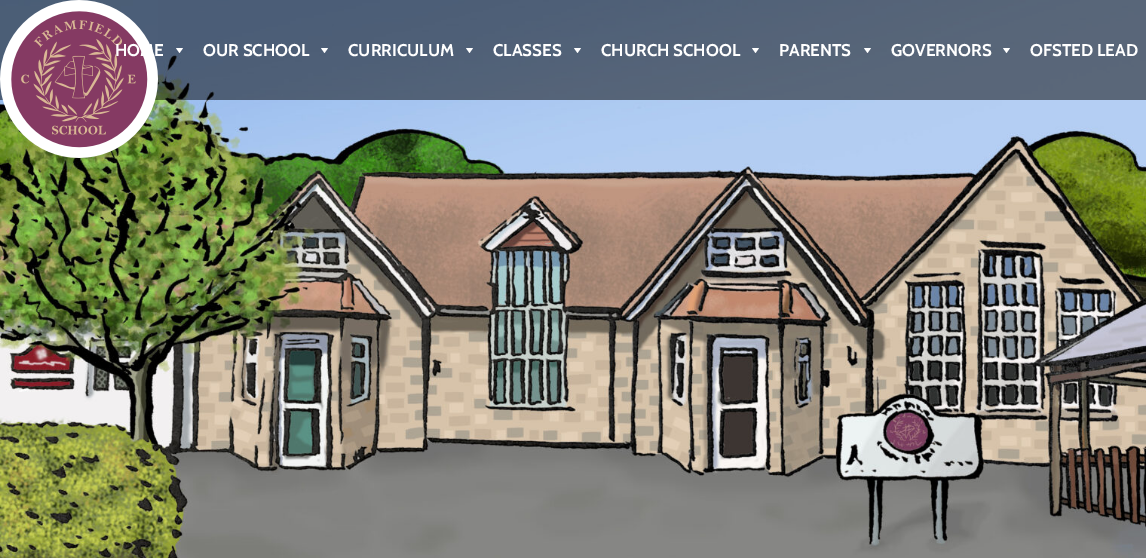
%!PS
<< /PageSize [1146 558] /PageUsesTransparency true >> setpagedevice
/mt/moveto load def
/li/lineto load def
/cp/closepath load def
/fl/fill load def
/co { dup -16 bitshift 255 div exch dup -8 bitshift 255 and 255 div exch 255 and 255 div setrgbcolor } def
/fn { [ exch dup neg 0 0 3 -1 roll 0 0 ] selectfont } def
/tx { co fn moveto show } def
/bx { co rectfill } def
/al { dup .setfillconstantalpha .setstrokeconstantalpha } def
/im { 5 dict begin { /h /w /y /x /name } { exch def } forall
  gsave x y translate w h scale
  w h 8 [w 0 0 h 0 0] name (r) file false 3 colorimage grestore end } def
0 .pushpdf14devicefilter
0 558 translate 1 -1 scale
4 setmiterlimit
0 0 1146 558 16#FFFFFF bx
(media/1.raw) 0 0 1146 558 im
0.5 al
0 0 1146 100 16#000000 bx
1 al
(media/2.raw) 0 0 158 158 im
16#FFFFFF co
183 48 mt 179.5 53 li 176 48 li cp fl
328 48 mt 324.5 53 li 321 48 li cp fl
473 48 mt 469.5 53 li 466 48 li cp fl
581 48 mt 577.5 53 li 574 48 li cp fl
759 48 mt 755.5 53 li 752 48 li cp fl
871 48 mt 867.5 53 li 864 48 li cp fl
1010 48 mt 1006.5 53 li 1003 48 li cp fl
(HOME) 115 56 /Cabin-Bold 17 16#FFFFFF tx
(OUR SCHOOL) 203 56 /Cabin-Bold 17 16#FFFFFF tx
(CURRICULUM) 348 56 /Cabin-Bold 17 16#FFFFFF tx
(CLASSES) 493 56 /Cabin-Bold 17 16#FFFFFF tx
(CHURCH SCHOOL) 601 56 /Cabin-Bold 17 16#FFFFFF tx
(PARENTS) 779 56 /Cabin-Bold 17 16#FFFFFF tx
(GOVERNORS) 891 56 /Cabin-Bold 17 16#FFFFFF tx
(OFSTED LEAD) 1030 56 /Cabin-Bold 17 16#FFFFFF tx
.poppdf14devicefilter showpage
